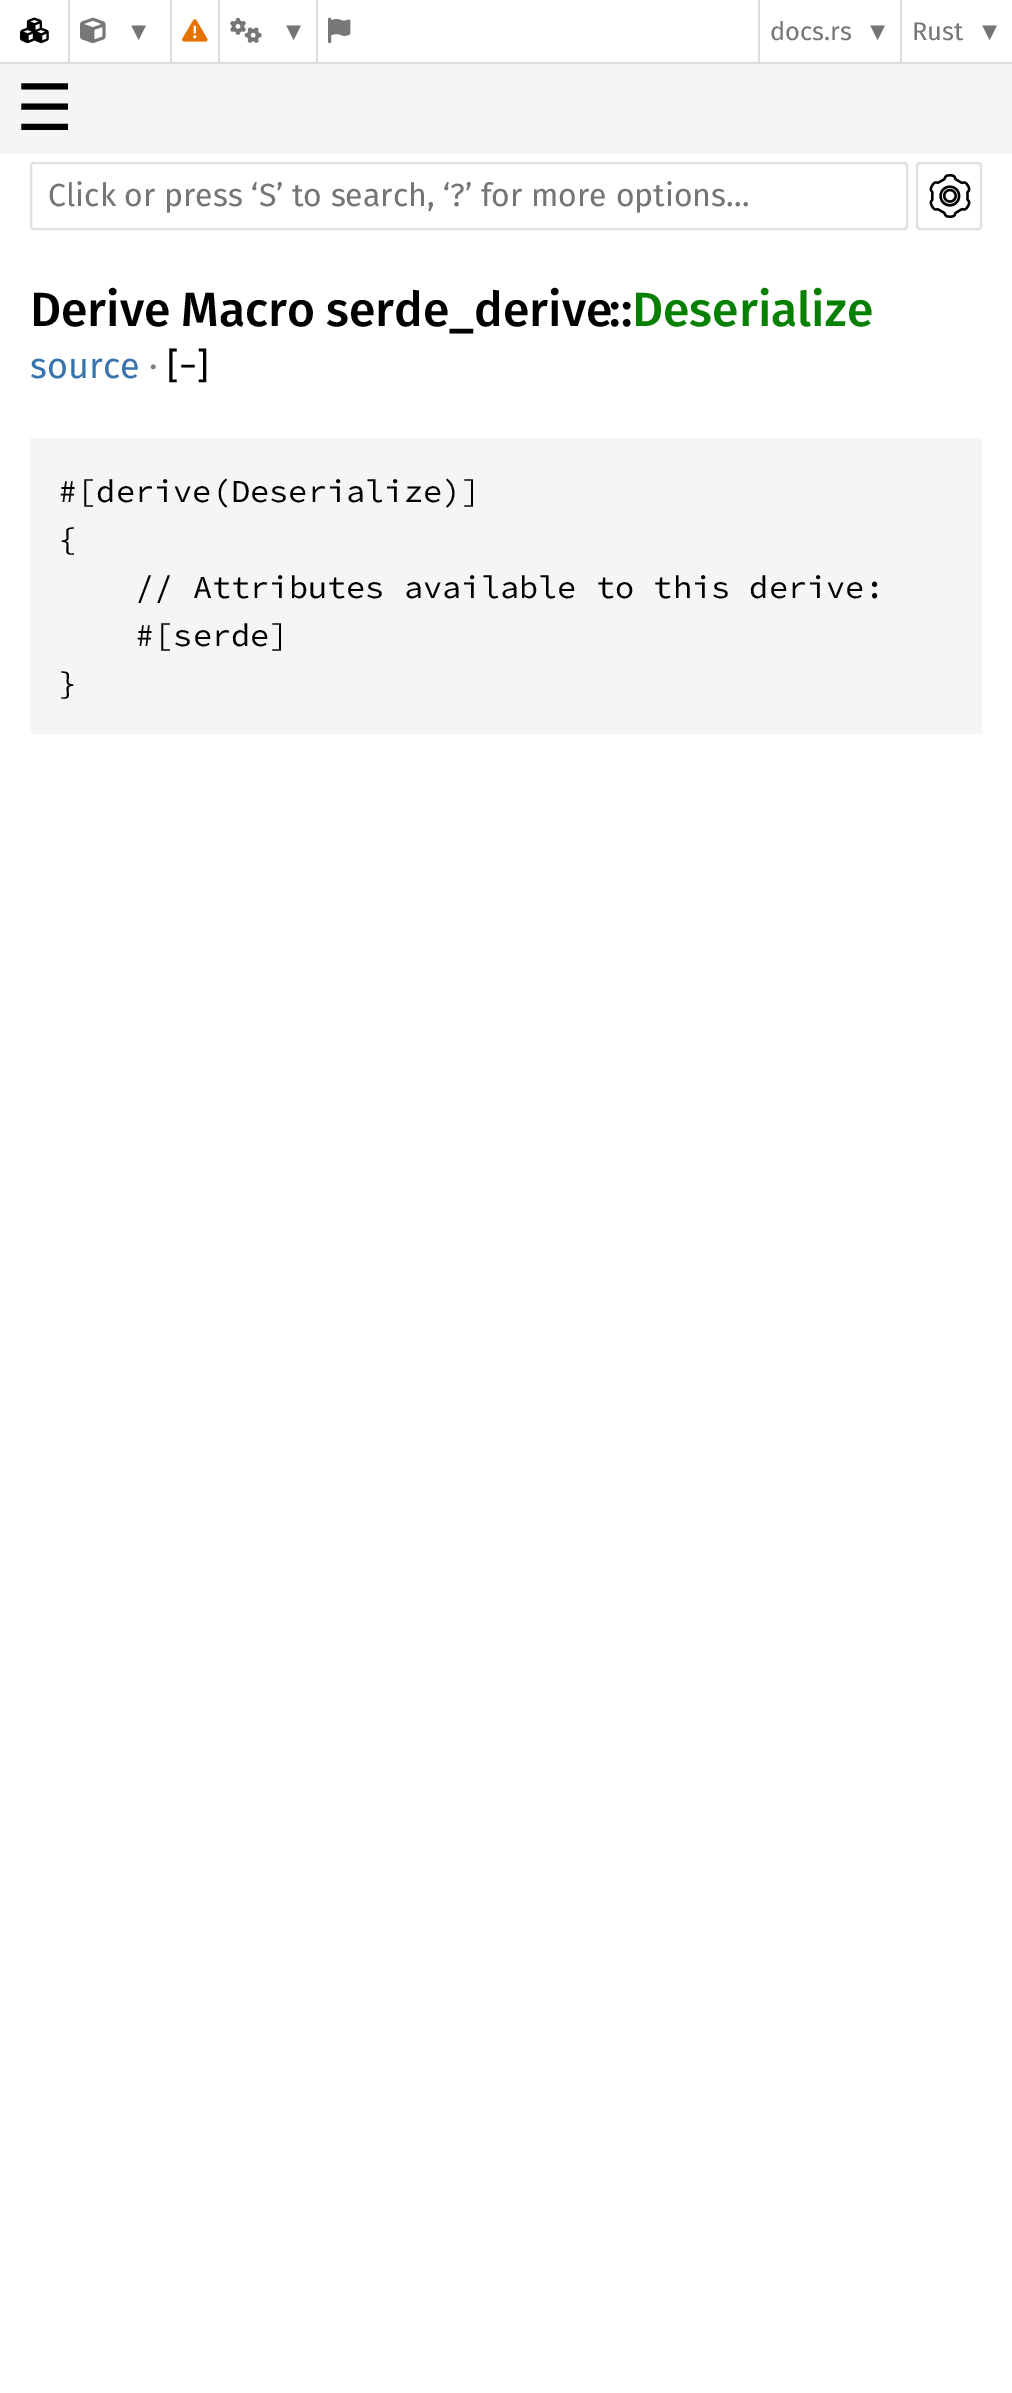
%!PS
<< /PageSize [1012 2393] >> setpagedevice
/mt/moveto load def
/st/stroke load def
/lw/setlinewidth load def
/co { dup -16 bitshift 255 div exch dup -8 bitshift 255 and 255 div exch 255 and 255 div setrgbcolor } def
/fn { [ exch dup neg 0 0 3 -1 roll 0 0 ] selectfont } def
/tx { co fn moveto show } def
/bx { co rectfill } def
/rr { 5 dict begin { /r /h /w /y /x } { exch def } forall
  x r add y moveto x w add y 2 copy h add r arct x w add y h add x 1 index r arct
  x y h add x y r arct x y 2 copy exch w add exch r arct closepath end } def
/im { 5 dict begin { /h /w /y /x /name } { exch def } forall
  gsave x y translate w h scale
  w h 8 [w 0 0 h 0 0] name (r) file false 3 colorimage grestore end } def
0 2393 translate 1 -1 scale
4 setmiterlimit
0 0 1012 2393 16#FFFFFF bx
0 62 1012 2 16#DDDDDD bx
(media/1.raw) 20 17 29 27 im
68 0 2 62 16#DDDDDD bx
(media/2.raw) 80 17 26 27 im
170 0 2 62 16#DDDDDD bx
(media/3.raw) 182 19 26 23 im
218 0 2 62 16#DDDDDD bx
(media/4.raw) 230 18 32 25 im
316 0 2 62 16#DDDDDD bx
(media/5.raw) 328 17 23 27 im
758 0 2 62 16#DDDDDD bx
900 0 2 62 16#DDDDDD bx
0 64 1012 90 16#F5F5F5 bx
16#E0E0E0 co
2 lw
31 163 876 66 3 rr st
917 163 64 66 3 rr st
(media/6.raw) 929 174 42 44 im
30 438 952 296 16#F5F5F5 bx
(▼) 126 40 /LiberationSans-Regular 25.5 16#757575 tx
(▼) 281 40 /LiberationSans-Regular 25.5 16#757575 tx
(docs.rs) 770 40 /FiraSans-Regular 25.5 16#757575 tx
(▼) 865 40 /LiberationSans-Regular 25.5 16#757575 tx
(Rust) 912 40 /FiraSans-Regular 25.5 16#757575 tx
(▼) 977 40 /LiberationSans-Regular 25.5 16#757575 tx
(☰) 16 130 /DejaVuSans-Regular 64 16#000000 tx
(Click or press ‘S’ to search, ‘?’ for more options…) 48 206 /FiraSans-Regular 32 16#757575 tx
/FiraSans-Medium 48 fn
16#000000 co
30 326 mt -1 0 32 (Derive Macro) widthshow
(serde_derive) 326 326 /FiraSans-Medium 48 16#000000 tx
(::) 609 326 /FiraSans-Medium 48 16#000000 tx
(Deserialize) 632 326 /FiraSans-Medium 48 16#068000 tx
(source) 30 378 /FiraSans-Regular 36 16#3873AD tx
(·) 149 378 /FiraSans-Regular 36 16#808080 tx
([−]) 167 378 /FiraSans-Regular 36 16#000000 tx
(#[derive\(Deserialize\)]) 58 502 /SourceCodePro-Regular 32 16#000000 tx
({) 58 550 /SourceCodePro-Regular 32 16#000000 tx
(// Attributes available to this derive:) 135 598 /SourceCodePro-Regular 32 16#000000 tx
(#[serde]) 135 646 /SourceCodePro-Regular 32 16#000000 tx
(}) 58 694 /SourceCodePro-Regular 32 16#000000 tx
showpage
